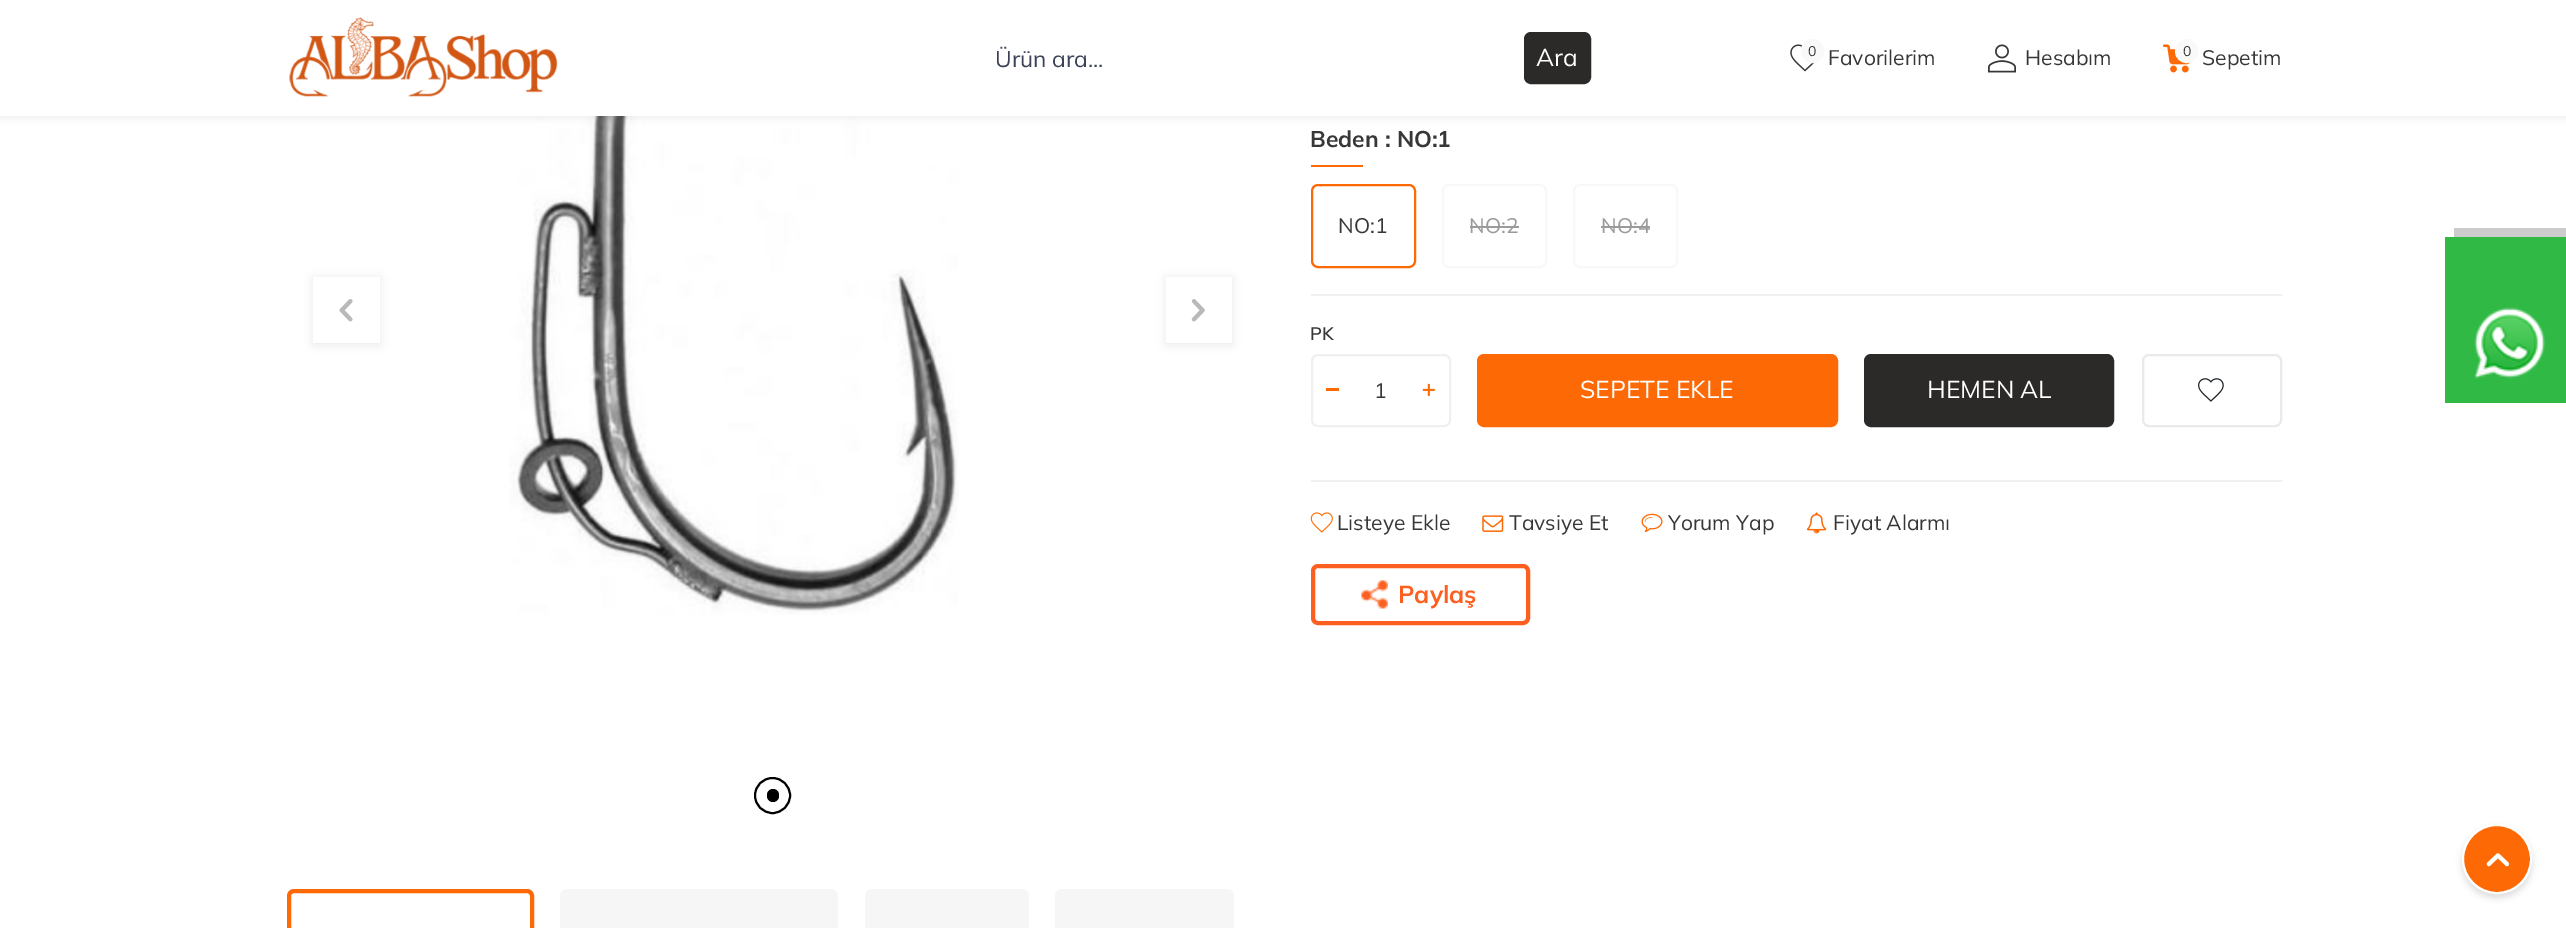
%!PS
<< /PageSize [2566 928] /PageUsesTransparency true >> setpagedevice
/mt/moveto load def
/li/lineto load def
/cp/closepath load def
/fl/fill load def
/st/stroke load def
/gs/gsave load def
/gr/grestore load def
/lw/setlinewidth load def
/co { dup -16 bitshift 255 div exch dup -8 bitshift 255 and 255 div exch 255 and 255 div setrgbcolor } def
/fn { [ exch dup neg 0 0 3 -1 roll 0 0 ] selectfont } def
/tx { co fn moveto show } def
/bx { co rectfill } def
/al { dup .setfillconstantalpha .setstrokeconstantalpha } def
/ci { newpath 0 360 arc closepath } def
/rr { 5 dict begin { /r /h /w /y /x } { exch def } forall
  x r add y moveto x w add y 2 copy h add r arct x w add y h add x 1 index r arct
  x y h add x y r arct x y 2 copy exch w add exch r arct closepath end } def
/sh { 12 dict begin { /a /b /q /h /w /y /x } { exch def } forall gsave /was 0 def
  9 -2 -9 { dup b mul 4 div /e exch def 1 sub .425 mul 2.718 exch exp 1 add a .99 .min exch div /now exch def
    1 1 now sub 1 was sub div sub al /was now def
    w h .min e 2 mul add 0 gt { x e sub y e sub w e 2 mul add h e 2 mul add
      q e add b .6 mul add w h .min 2 div e add .min 0 .max rr fill } if } for grestore end } def
/im { 5 dict begin { /h /w /y /x /name } { exch def } forall
  gsave x y translate w h scale
  w h 8 [w 0 0 h 0 0] name (r) file false 3 colorimage grestore end } def
0 .pushpdf14devicefilter
0 928 translate 1 -1 scale
4 setmiterlimit
0 0 2566 928 16#FFFFFF bx
(media/7.raw) 509 116 450 499 im
16#000000 co
0 4 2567 115 0 3.5 .06 sh
0 1 2566 115 16#FFFFFF bx
(media/1.raw) 289 17 269 80 im
16#2C2A28 co
1525 33 65 50 6 rr gs fl gr
2 lw
st
(media/2.raw) 1790 44 25 28 im
16#F9F9F9 co
1802 40 21 22 10.5 rr gs fl gr
st
(media/3.raw) 1988 44 28 29 im
(media/4.raw) 2163 44 27 29 im
2176 40 21 22 10.5 rr gs fl gr
st
16#000000 co
2462 828 70 70 35 3.5 .13 sh
16#FD6905 co
2497 859 34 ci gs fl gr
16#FFFFFF co
st
(media/5.raw) 2486 853 23 14 im
16#A6A6A6 co
313 278 67 67 0 4.5 .24 sh
313 277 67 66 16#FFFFFF bx
(media/6.raw) 339 299 14 23 im
gs
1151 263 mt 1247 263 li 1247 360 li 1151 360 li cp 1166 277 mt 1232 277 li 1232 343 li 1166 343 li cp eoclip newpath
16#A6A6A6 co
1166 278 66 67 0 4.5 .24 sh
gr
(media/8.raw) 1191 299 14 23 im
16#000000 co
772.5 795.5 17.5 ci st
767 789 12 13 6 rr fl
1311 294 971 2 16#F0F0F0 bx
1311 165 52 2 16#FD6905 bx
1312 185 103 82 6 rr st
16#F8F8F8 co
1443 185 103 82 6 rr st
1470 226 49 2 16#9B9B9B bx
16#F8F8F8 co
1574 185 103 82 6 rr st
1601 226 49 2 16#9B9B9B bx
16#F0F0F0 co
1312 355 138 71 6 rr st
1326 388 13 3 16#FD6905 bx
(media/9.raw) 1422 383 13 13 im
1478 355 359 71 6 rr gs fl gr
st
16#2C2A28 co
1865 355 248 71 6 rr gs fl gr
st
16#EAEAEA co
2143 355 138 71 6 rr st
(media/10.raw) 2198 378 26 24 im
1311 480 971 2 16#F0F0F0 bx
(media/11.raw) 1310 512 23 21 im
(media/12.raw) 1482 515 22 17 im
(media/13.raw) 1641 513 22 20 im
(media/14.raw) 1806 512 21 22 im
16#FC5F1F co
4 lw
1313 566 215 57 5 rr st
(media/15.raw) 1361 580 27 29 im
16#FD6905 co
289 891 243 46 5 rr st
16#F6F6F6 co
560 889 278 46 7 rr fl
865 889 164 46 7 rr fl
1055 889 179 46 7 rr fl
16#CCCCCC co
2454 228 mt 2454 237 li 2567 237 li 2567 395 li 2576 395 li 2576 228 li cp fl
2445 237 121 166 16#30BA45 bx
(media/16.raw) 2474 307 71 72 im
(Ürün ara...) 995 67 /Mulish-Regular 22.75 16#3C4257 tx
(Ara) 1536 66 /Mulish-Regular 24.5 16#FFFFFF tx
(0) 1808 56 /Mulish-Regular 14 16#373738 tx
(Favorilerim) 1828 65 /Mulish-Regular 21 16#373738 tx
(Hesabım) 2025 65 /Mulish-Regular 21 16#373738 tx
(0) 2183 56 /Mulish-Regular 14 16#373738 tx
(Sepetim) 2202 65 /Mulish-Regular 21 16#373738 tx
(Beden : NO:1) 1310 147 /Mulish-Bold 22.75 16#373738 tx
(NO:1) 1338 233 /Mulish-Regular 21 16#373738 tx
(NO:2) 1469 233 /Mulish-Regular 21 16#9B9B9B tx
(NO:4) 1601 233 /Mulish-Regular 21 16#9B9B9B tx
(PK) 1310 340 /Mulish-SemiBold 18 16#373738 tx
(1) 1374 398 /Mulish-Regular 21 16#373738 tx
(SEPETE EKLE) 1580 398 /Mulish-Regular 24.5 16#FFFFFF tx
(HEMEN AL) 1927 398 /Mulish-Regular 24.5 16#FFFFFF tx
(Listeye Ekle) 1337 530 /Mulish-Regular 21 16#373738 tx
(Tavsiye Et) 1509 530 /Mulish-Regular 21 16#373738 tx
(Yorum Yap) 1668 530 /Mulish-Regular 21 16#373738 tx
(Fiyat Alarmı) 1833 530 /Mulish-Regular 21 16#373738 tx
(Paylaş) 1398 603 /Mulish-Bold 24.5 16#FC5F1F tx
.poppdf14devicefilter showpage
